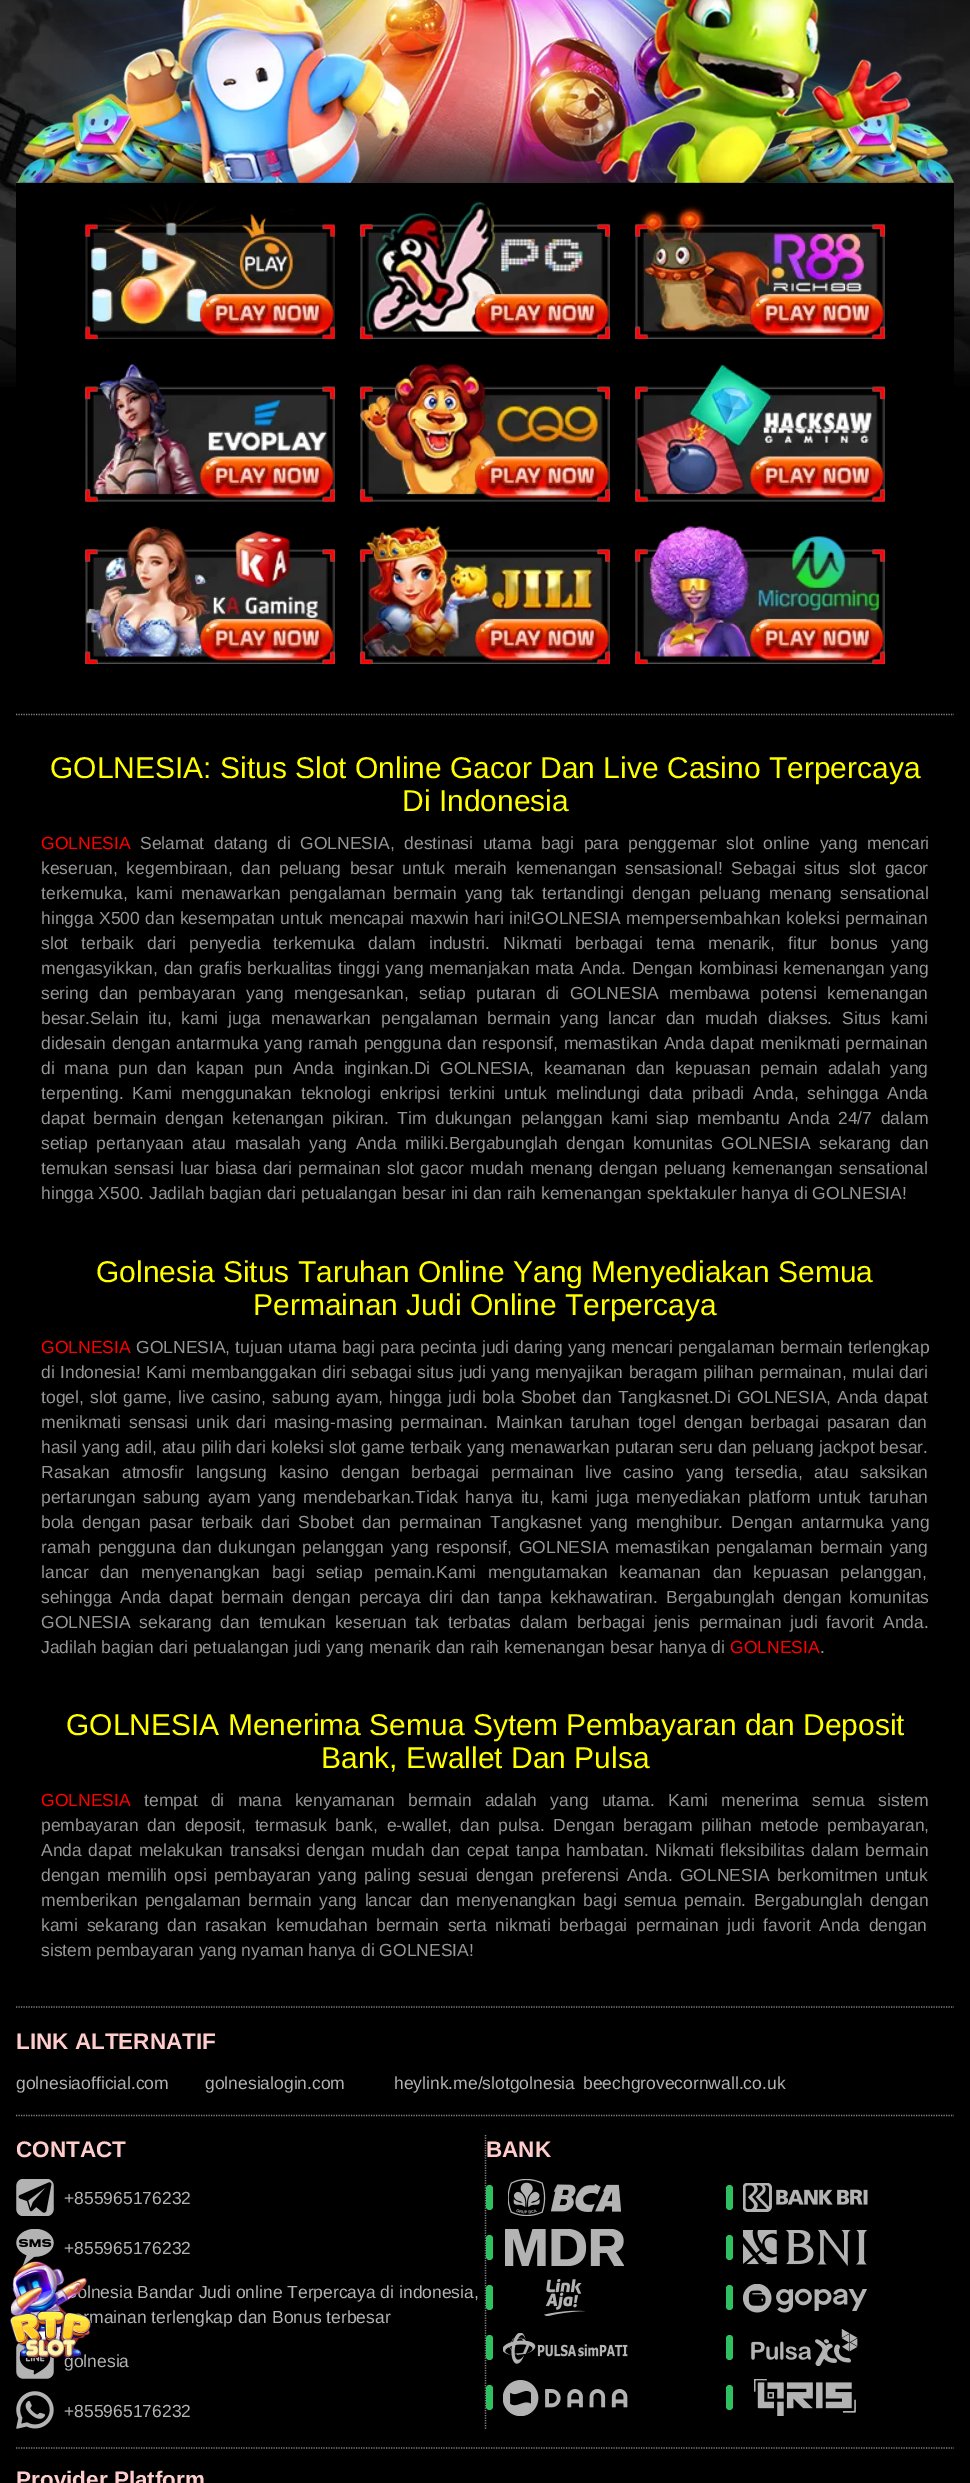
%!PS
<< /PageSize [970 2483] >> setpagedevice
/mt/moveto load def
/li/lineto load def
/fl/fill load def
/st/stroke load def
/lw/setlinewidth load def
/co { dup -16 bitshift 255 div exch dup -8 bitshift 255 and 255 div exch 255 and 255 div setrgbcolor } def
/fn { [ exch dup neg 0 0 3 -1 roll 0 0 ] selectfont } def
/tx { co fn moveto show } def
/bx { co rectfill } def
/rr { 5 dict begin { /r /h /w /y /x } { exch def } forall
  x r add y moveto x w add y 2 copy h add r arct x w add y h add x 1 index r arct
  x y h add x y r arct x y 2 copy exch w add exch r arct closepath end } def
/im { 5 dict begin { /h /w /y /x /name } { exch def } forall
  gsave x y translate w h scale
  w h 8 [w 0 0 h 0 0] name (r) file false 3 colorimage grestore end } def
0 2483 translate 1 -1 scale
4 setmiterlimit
0 0 970 2483 16#000000 bx
(media/1.raw) 0 0 970 387 im
(media/2.raw) 16 0 938 183 im
16 183 938 204 16#000000 bx
(media/3.raw) 85 201 250 138 im
(media/4.raw) 85 224 250 115 im
(media/5.raw) 360 201 250 138 im
(media/6.raw) 360 224 250 115 im
(media/7.raw) 635 205 250 134 im
(media/8.raw) 635 224 250 115 im
(media/9.raw) 85 364 250 138 im
(media/10.raw) 85 386 250 116 im
(media/11.raw) 360 364 250 138 im
(media/12.raw) 360 386 250 116 im
(media/13.raw) 635 364 250 138 im
(media/14.raw) 635 386 250 116 im
(media/15.raw) 85 526 250 138 im
(media/16.raw) 85 549 250 115 im
(media/17.raw) 360 526 250 138 im
(media/18.raw) 360 549 250 115 im
(media/19.raw) 635 526 250 138 im
(media/20.raw) 635 549 250 115 im
16#848484 co
1.2 lw
[1.25 1.25] 0 setdash
16 714.5 mt 954 714.5 li st
16 2007 mt 954 2007 li st
16 2115.5 mt 954 2115.5 li st
(media/21.raw) 16 2179 38 37 im
(media/22.raw) 16 2229 38 37 im
(media/23.raw) 16 2297 1 2 im
(media/24.raw) 16 2343 38 36 im
(media/25.raw) 16 2391 38 38 im
485.5 2135 mt 485.5 2429 li st
16#2FC061 co
486 2185 7 25 3.5 rr fl
(media/26.raw) 508 2179 113 37 im
726 2185 7 25 3.5 rr fl
(media/27.raw) 743 2183 125 29 im
486 2235 7 25 3.5 rr fl
(media/28.raw) 505 2229 119 37 im
726 2235 7 25 3.5 rr fl
(media/29.raw) 743 2230 125 36 im
486 2285 7 25 3.5 rr fl
(media/30.raw) 544 2279 41 37 im
726 2285 7 25 3.5 rr fl
(media/31.raw) 743 2284 124 29 im
486 2335 7 25 3.5 rr fl
(media/32.raw) 503 2333 125 31 im
726 2335 7 25 3.5 rr fl
(media/33.raw) 751 2329 107 37 im
486 2385 7 25 3.5 rr fl
(media/34.raw) 503 2380 125 36 im
726 2385 7 25 3.5 rr fl
(media/35.raw) 754 2379 102 37 im
16#848484 co
16 2448 mt 954 2448 li st
(GOLNESIA: Situs Slot Online Gacor Dan Live Casino Terpercaya) 50 778 /LiberationSans-Regular 30 16#FFFF00 tx
(Di Indonesia) 402 811 /LiberationSans-Regular 30 16#FFFF00 tx
(GOLNESIA) 41 849 /LiberationSans-Regular 17.5 16#FF0000 tx
16#969696 co
140 849 mt 4.75 0 32 (Selamat datang di GOLNESIA, destinasi utama bagi para penggemar slot online yang mencari) widthshow
41 874 mt 3.75 0 32 (keseruan, kegembiraan, dan peluang besar untuk meraih kemenangan sensasional! Sebagai situs slot gacor) widthshow
41 899 mt 3.25 0 32 (terkemuka, kami menawarkan pengalaman bermain yang tak tertandingi dengan peluang menang sensational) widthshow
41 924 mt .5 0 32 (hingga X500 dan kesempatan untuk mencapai maxwin hari ini!GOLNESIA mempersembahkan koleksi permainan) widthshow
41 949 mt 8.25 0 32 (slot terbaik dari penyedia terkemuka dalam industri. Nikmati berbagai tema menarik, fitur bonus yang) widthshow
41 974 mt 1 0 32 (mengasyikkan, dan grafis berkualitas tinggi yang memanjakan mata Anda. Dengan kombinasi kemenangan yang) widthshow
41 999 mt 5.4 0 32 (sering dan pembayaran yang mengesankan, setiap putaran di GOLNESIA membawa potensi kemenangan) widthshow
41 1024 mt 5 0 32 (besar.Selain itu, kami juga menawarkan pengalaman bermain yang lancar dan mudah diakses. Situs kami) widthshow
41 1049 mt .9 0 32 (didesain dengan antarmuka yang ramah pengguna dan responsif, memastikan Anda dapat menikmati permainan) widthshow
41 1074 mt 5 0 32 (di mana pun dan kapan pun Anda inginkan.Di GOLNESIA, keamanan dan kepuasan pemain adalah yang) widthshow
41 1099 mt 3.9 0 32 (terpenting. Kami menggunakan teknologi enkripsi terkini untuk melindungi data pribadi Anda, sehingga Anda) widthshow
41 1124 mt 3.75 0 32 (dapat bermain dengan ketenangan pikiran. Tim dukungan pelanggan kami siap membantu Anda 24/7 dalam) widthshow
41 1149 mt 3.6 0 32 (setiap pertanyaan atau masalah yang Anda miliki.Bergabunglah dengan komunitas GOLNESIA sekarang dan) widthshow
41 1174 mt 1.25 0 32 (temukan sensasi luar biasa dari permainan slot gacor mudah menang dengan peluang kemenangan sensational) widthshow
(hingga X500. Jadilah bagian dari petualangan besar ini dan raih kemenangan spektakuler hanya di GOLNESIA!) 41 1199 /LiberationSans-Regular 17.5 16#969696 tx
(Golnesia Situs Taruhan Online Yang Menyediakan Semua) 96 1282 /LiberationSans-Regular 30 16#FFFF00 tx
(Permainan Judi Online Terpercaya) 253 1315 /LiberationSans-Regular 30 16#FFFF00 tx
(GOLNESIA) 41 1353 /LiberationSans-Regular 17.5 16#FF0000 tx
16#969696 co
136 1353 mt .25 0 32 (GOLNESIA, tujuan utama bagi para pecinta judi daring yang mencari pengalaman bermain terlengkap) widthshow
41 1378 mt .5 0 32 (di Indonesia! Kami membanggakan diri sebagai situs judi yang menyajikan beragam pilihan permainan, mulai dari) widthshow
41 1403 mt 1.3 0 32 (togel, slot game, live casino, sabung ayam, hingga judi bola Sbobet dan Tangkasnet.Di GOLNESIA, Anda dapat) widthshow
41 1428 mt 3.25 0 32 (menikmati sensasi unik dari masing-masing permainan. Mainkan taruhan togel dengan berbagai pasaran dan) widthshow
(hasil yang adil, atau pilih dari koleksi slot game terbaik yang menawarkan putaran seru dan peluang jackpot besar.) 41 1453 /LiberationSans-Regular 17.5 16#969696 tx
41 1478 mt 6.9 0 32 (Rasakan atmosfir langsung kasino dengan berbagai permainan live casino yang tersedia, atau saksikan) widthshow
41 1503 mt 2.6 0 32 (pertarungan sabung ayam yang mendebarkan.Tidak hanya itu, kami juga menyediakan platform untuk taruhan) widthshow
41 1528 mt 3.25 0 32 (bola dengan pasar terbaik dari Sbobet dan permainan Tangkasnet yang menghibur. Dengan antarmuka yang) widthshow
41 1553 mt 2.1 0 32 (ramah pengguna dan dukungan pelanggan yang responsif, GOLNESIA memastikan pengalaman bermain yang) widthshow
41 1578 mt 6.5 0 32 (lancar dan menyenangkan bagi setiap pemain.Kami mengutamakan keamanan dan kepuasan pelanggan,) widthshow
41 1603 mt 3.25 0 32 (sehingga Anda dapat bermain dengan percaya diri dan tanpa kekhawatiran. Bergabunglah dengan komunitas) widthshow
41 1628 mt 4.1 0 32 (GOLNESIA sekarang dan temukan keseruan tak terbatas dalam berbagai jenis permainan judi favorit Anda.) widthshow
(Jadilah bagian dari petualangan judi yang menarik dan raih kemenangan besar hanya di) 41 1653 /LiberationSans-Regular 17.5 16#969696 tx
(GOLNESIA) 730 1653 /LiberationSans-Regular 17.5 16#FF0000 tx
(.) 820 1653 /LiberationSans-Regular 17.5 16#969696 tx
(GOLNESIA Menerima Semua Sytem Pembayaran dan Deposit) 66 1735 /LiberationSans-Regular 30 16#FFFF00 tx
(Bank, Ewallet Dan Pulsa) 321 1768 /LiberationSans-Regular 30 16#FFFF00 tx
(GOLNESIA) 41 1806 /LiberationSans-Regular 17.5 16#FF0000 tx
16#969696 co
144 1806 mt 8.4 0 32 (tempat di mana kenyamanan bermain adalah yang utama. Kami menerima semua sistem) widthshow
41 1831 mt 3.75 0 32 (pembayaran dan deposit, termasuk bank, e-wallet, dan pulsa. Dengan beragam pilihan metode pembayaran,) widthshow
41 1856 mt 1.6 0 32 (Anda dapat melakukan transaksi dengan mudah dan cepat tanpa hambatan. Nikmati fleksibilitas dalam bermain) widthshow
41 1881 mt 2.5 0 32 (dengan memilih opsi pembayaran yang paling sesuai dengan preferensi Anda. GOLNESIA berkomitmen untuk) widthshow
41 1906 mt 2.6 0 32 (memberikan pengalaman bermain yang lancar dan menyenangkan bagi semua pemain. Bergabunglah dengan) widthshow
41 1931 mt 3.75 0 32 (kami sekarang dan rasakan kemudahan bermain serta nikmati berbagai permainan judi favorit Anda dengan) widthshow
(sistem pembayaran yang nyaman hanya di GOLNESIA!) 41 1956 /LiberationSans-Regular 17.5 16#969696 tx
(LINK ALTERNATIF) 16 2049 /LiberationSans-Bold 22.5 16#FFCCCC tx
(golnesiaofficial.com) 16 2089 /LiberationSans-Regular 17.5 16#B3B3B3 tx
(golnesialogin.com) 205 2089 /LiberationSans-Regular 17.5 16#B3B3B3 tx
(heylink.me/slotgolnesia) 394 2089 /LiberationSans-Regular 17.5 16#B3B3B3 tx
(beechgrovecornwall.co.uk) 583 2089 /LiberationSans-Regular 17.5 16#B3B3B3 tx
(CONTACT) 16 2157 /LiberationSans-Bold 22.5 16#FFCCCC tx
(+855965176232) 64 2204 /LiberationSans-Regular 17.5 16#B3B3B3 tx
(+855965176232) 64 2254 /LiberationSans-Regular 17.5 16#B3B3B3 tx
(olnesia Bandar Judi online Terpercaya di indonesia,) 77 2298 /LiberationSans-Regular 17.5 16#B3B3B3 tx
(mainan terlengkap dan Bonus terbesar) 89 2323 /LiberationSans-Regular 17.5 16#B3B3B3 tx
(golnesia) 64 2367 /LiberationSans-Regular 17.5 16#B3B3B3 tx
(+855965176232) 64 2417 /LiberationSans-Regular 17.5 16#B3B3B3 tx
(BANK) 486 2157 /LiberationSans-Bold 22.5 16#FFCCCC tx
(Provider Platform) 16 2487 /LiberationSans-Bold 22.5 16#FFCCCC tx
(media/36.raw) 9 2261 83 97 im
showpage
